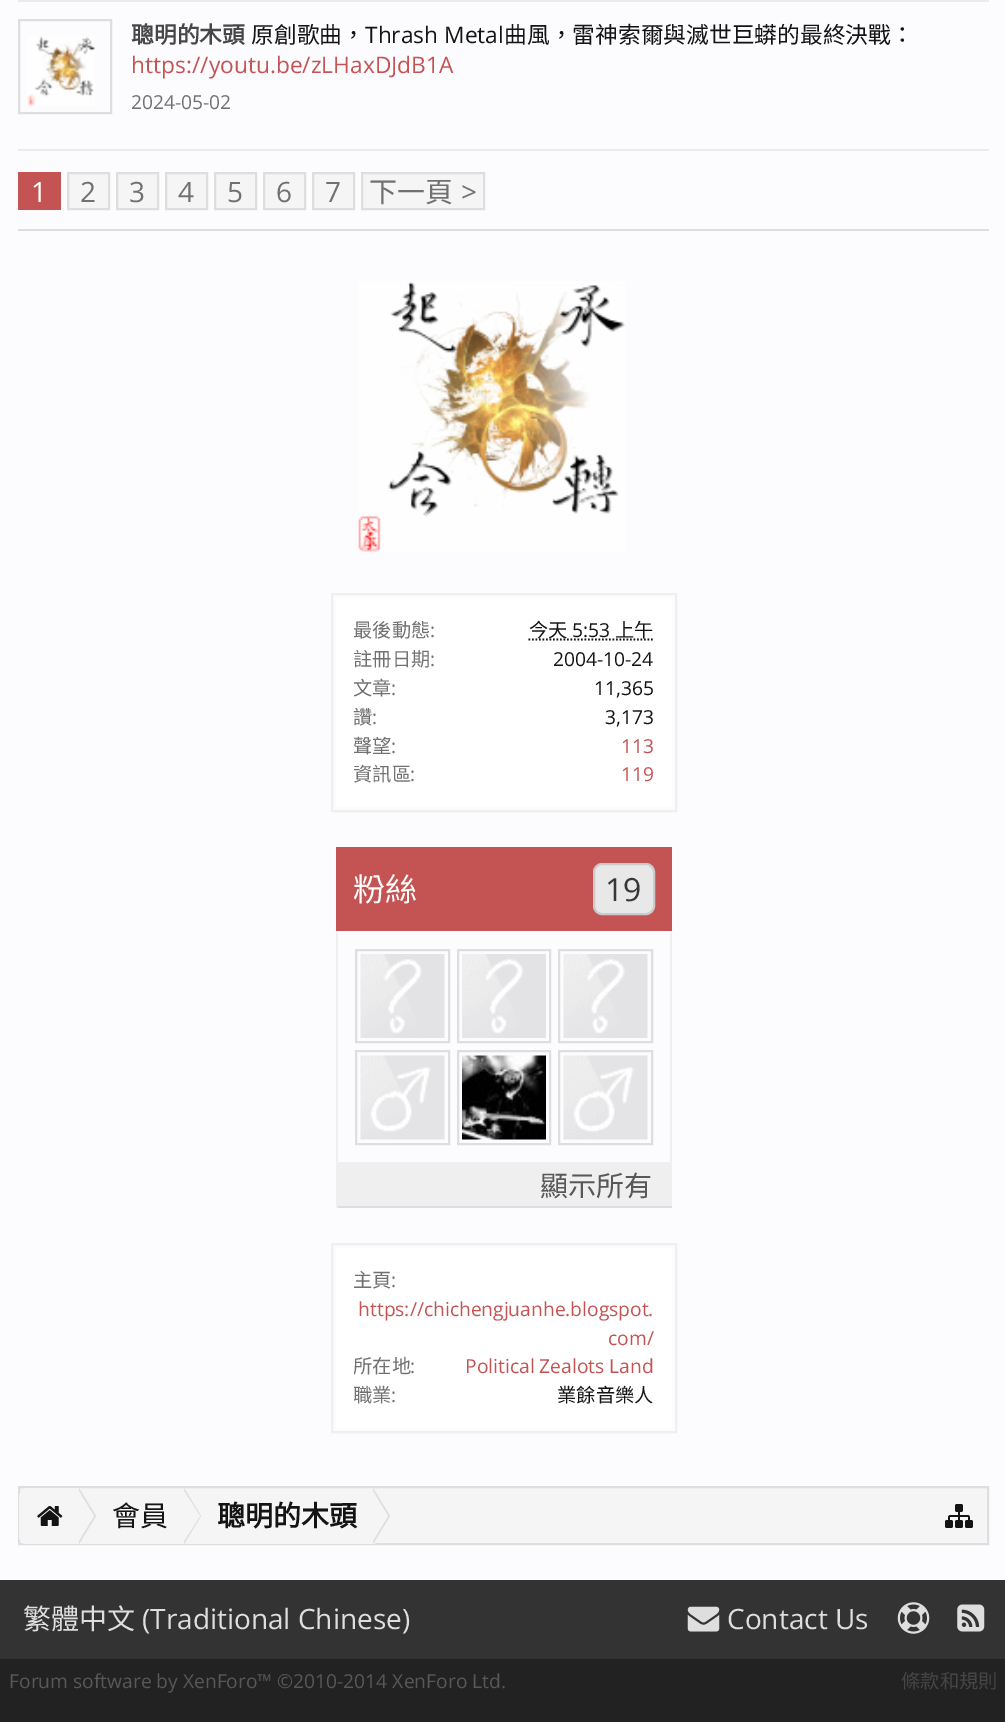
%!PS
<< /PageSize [1005 1722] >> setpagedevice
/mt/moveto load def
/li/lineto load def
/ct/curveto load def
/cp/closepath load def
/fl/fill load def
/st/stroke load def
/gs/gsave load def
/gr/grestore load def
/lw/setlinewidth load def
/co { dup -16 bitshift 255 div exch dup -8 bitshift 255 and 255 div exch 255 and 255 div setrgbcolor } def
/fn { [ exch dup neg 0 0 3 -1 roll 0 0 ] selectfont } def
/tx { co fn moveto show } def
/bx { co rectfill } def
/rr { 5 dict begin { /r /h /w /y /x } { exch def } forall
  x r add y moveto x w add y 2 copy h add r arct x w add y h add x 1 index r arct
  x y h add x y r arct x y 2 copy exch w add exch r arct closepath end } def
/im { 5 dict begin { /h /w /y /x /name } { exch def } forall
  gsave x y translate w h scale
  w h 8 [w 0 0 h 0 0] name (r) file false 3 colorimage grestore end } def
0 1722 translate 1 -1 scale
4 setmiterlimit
0 0 1005 1722 16#222222 bx
0 0 1005 1580 16#FCFCFF bx
18 229 971 2 16#DEDEDE bx
18 0 971 2 16#EBEBEB bx
18 149 971 2 16#EBEBEB bx
16#DEDEDE co
2 lw
19 20 92 93 rectstroke
(media/1.raw) 27 36 68 70 im
18 172 43 38 16#C45454 bx
16#F5F5F5 co
68 173 mt 109 173 li 109 209 li 68 209 li cp gs fl gr
16#DEDEDE co
st
16#F5F5F5 co
117 173 mt 158 173 li 158 209 li 117 209 li cp gs fl gr
16#DEDEDE co
st
16#F5F5F5 co
166 173 mt 207 173 li 207 209 li 166 209 li cp gs fl gr
16#DEDEDE co
st
16#F5F5F5 co
215 173 mt 256 173 li 256 209 li 215 209 li cp gs fl gr
16#DEDEDE co
st
16#F5F5F5 co
264 173 mt 305 173 li 305 209 li 264 209 li cp gs fl gr
16#DEDEDE co
st
16#F5F5F5 co
313 173 mt 354 173 li 354 209 li 313 209 li cp gs fl gr
16#DEDEDE co
st
16#F5F5F5 co
362 173 mt 484 173 li 484 209 li 362 209 li cp gs fl gr
16#DEDEDE co
st
(media/2.raw) 358 281 267 271 im
16#EFEFEF co
332 594 344 217 rectstroke
336 599 336 208 16#FFFFFF bx
16#141414 co
1.8 lw
[1.75 1.75] 0 setdash
528.5 639.5 mt 653.5 639.5 li st
336 847 336 84 16#C45454 bx
16#E8E8E8 co
594 864 60 50 8 rr gs fl gr
16#CBCBCB co
2 lw
[] 0 setdash
st
670 931 2 233 16#EFEFEF bx
336 1162 336 2 16#EFEFEF bx
336 931 2 233 16#EFEFEF bx
(media/3.raw) 360 954 85 84 im
16#DEDEDE co
356 950 93 92 rectstroke
(media/4.raw) 462 954 84 84 im
458 950 92 92 rectstroke
(media/5.raw) 563 954 85 84 im
559 950 93 92 rectstroke
(media/6.raw) 360 1055 85 85 im
356 1051 93 93 rectstroke
(media/7.raw) 462 1055 84 85 im
458 1051 92 93 rectstroke
(media/8.raw) 563 1055 85 85 im
559 1051 93 93 rectstroke
338 1164 334 42 16#EFEFEF bx
336 1206 336 2 16#DEDEDE bx
336 1164 2 44 16#EFEFEF bx
332 1244 344 188 rectstroke
336 1248 336 180 16#FFFFFF bx
16#F5F5F5 co
19 1487 mt 988 1487 li 988 1544 li 19 1544 li cp gs fl gr
16#DEDEDE co
st
gs
19 1488 968 56 rectclip
16#F5F5F5 co
28 1488 mt 81 1488 li 81 1545 li 28 1545 li 23 1545 19 1541 19 1536 ct 19 1497 li 19 1492 23 1488 28 1488 ct cp fl
gr
(media/9.raw) 37 1506 26 20 im
81 1543 294 1 16#F5F5F5 bx
16#DEDEDE co
79 1544 mt 79 1488 li 96 1516 li cp fl
16#F5F5F5 co
77 1544 mt 77 1488 li 94 1516 li cp fl
16#DEDEDE co
184 1544 mt 184 1488 li 201 1516 li cp fl
16#F5F5F5 co
182 1544 mt 182 1488 li 200 1516 li cp fl
16#DEDEDE co
373 1544 mt 373 1488 li 390 1516 li cp fl
16#F5F5F5 co
371 1544 mt 371 1488 li 388 1516 li cp fl
(media/10.raw) 945 1504 28 24 im
0 1580 1005 79 16#333333 bx
(media/11.raw) 687 1606 33 26 im
(media/12.raw) 897 1602 33 32 im
(media/13.raw) 957 1604 28 28 im
(聰明的木頭) 131 43 /NotoSansCJKTC-Bold 22.75 16#464646 tx
(原創歌曲，) 251 43 /NotoSansCJKTC-Regular 22.75 16#141414 tx
(Thrash Metal) 365 43 /OpenSans-Regular 22.75 16#141414 tx
(曲風，雷神索爾與滅世巨蟒的最終決戰：) 504 43 /NotoSansCJKTC-Regular 22.75 16#141414 tx
(https://youtu.be/zLHaxDJdB1A) 131 73 /OpenSans-Regular 22.75 16#C45454 tx
(2024-05-02) 131 109 /OpenSans-Regular 19.25 16#717171 tx
(1) 31 202 /OpenSans-Regular 28 16#FFFFFF tx
(2) 80 202 /OpenSans-Regular 28 16#717171 tx
(3) 129 202 /OpenSans-Regular 28 16#717171 tx
(4) 178 202 /OpenSans-Regular 28 16#717171 tx
(5) 227 202 /OpenSans-Regular 28 16#717171 tx
(6) 276 202 /OpenSans-Regular 28 16#717171 tx
(7) 325 202 /OpenSans-Regular 28 16#717171 tx
(下一頁) 369 202 /NotoSansCJKTC-Regular 28 16#717171 tx
(>) 461 202 /OpenSans-Regular 28 16#717171 tx
gs
354 616 301 30 rectclip
(最後動態) 353 637 /NotoSansCJKTC-Regular 19.25 16#717171 tx
gr
(:) 430 637 /OpenSans-Regular 19.25 16#717171 tx
(今天) 529 637 /NotoSansCJKTC-Regular 19.25 16#141414 tx
(5:53) 572 637 /OpenSans-Regular 19.25 16#141414 tx
(上午) 615 637 /NotoSansCJKTC-Regular 19.25 16#141414 tx
(註冊日期) 353 666 /NotoSansCJKTC-Regular 19.25 16#717171 tx
(:) 430 666 /OpenSans-Regular 19.25 16#717171 tx
(2004-10-24) 553 666 /OpenSans-Regular 19.25 16#141414 tx
gs
354 674 301 30 rectclip
(文章) 353 695 /NotoSansCJKTC-Regular 19.25 16#717171 tx
gr
(:) 391 695 /OpenSans-Regular 19.25 16#717171 tx
(11,365) 594 695 /OpenSans-Regular 19.25 16#141414 tx
(讚) 353 724 /NotoSansCJKTC-Regular 19.25 16#717171 tx
(:) 372 724 /OpenSans-Regular 19.25 16#717171 tx
(3,173) 605 724 /OpenSans-Regular 19.25 16#141414 tx
gs
354 732 301 29 rectclip
(聲望) 353 753 /NotoSansCJKTC-Regular 19.25 16#717171 tx
gr
(:) 391 753 /OpenSans-Regular 19.25 16#717171 tx
(113) 621 753 /OpenSans-Regular 19.25 16#C45454 tx
(資訊區) 353 781 /NotoSansCJKTC-Regular 19.25 16#717171 tx
(:) 410 781 /OpenSans-Regular 19.25 16#717171 tx
(119) 621 781 /OpenSans-Regular 19.25 16#C45454 tx
(粉絲) 353 901 /NotoSansCJKTC-Regular 32 16#FFFFFF tx
(19) 605 901 /OpenSans-Regular 32 16#373737 tx
(顯示所有) 540 1196 /NotoSansCJKTC-Regular 28 16#585858 tx
(主頁) 353 1287 /NotoSansCJKTC-Regular 19.25 16#717171 tx
(:) 391 1287 /OpenSans-Regular 19.25 16#717171 tx
(https://chichengjuanhe.blogspot.) 358 1316 /OpenSans-Regular 19.25 16#C45454 tx
(com/) 608 1345 /OpenSans-Regular 19.25 16#C45454 tx
gs
354 1353 301 28 rectclip
(所在地) 353 1373 /NotoSansCJKTC-Regular 19.25 16#717171 tx
gr
(:) 410 1373 /OpenSans-Regular 19.25 16#717171 tx
(Political Zealots Land) 465 1373 /OpenSans-Regular 19.25 16#C45454 tx
gs
354 1381 301 30 rectclip
(職業) 353 1402 /NotoSansCJKTC-Regular 19.25 16#717171 tx
gr
(:) 391 1402 /OpenSans-Regular 19.25 16#717171 tx
(業餘音樂人) 557 1402 /NotoSansCJKTC-Regular 19.25 16#141414 tx
(會員) 112 1526 /NotoSansCJKTC-Regular 28 16#141414 tx
(聰明的木頭) 217 1526 /NotoSansCJKTC-Bold 28 16#141414 tx
(繁體中文) 23 1629 /NotoSansCJKTC-Regular 28 16#DEDEDE tx
(\(Traditional Chinese\)) 142 1629 /OpenSans-Regular 28 16#DEDEDE tx
(Contact Us) 727 1629 /OpenSans-Regular 28 16#DEDEDE tx
(Forum software by XenForo™ ©2010-2014 XenForo Ltd.) 9 1688 /OpenSans-Regular 19.25 16#585858 tx
(條款和規則) 901 1688 /NotoSansCJKTC-Regular 19.25 16#464646 tx
showpage
